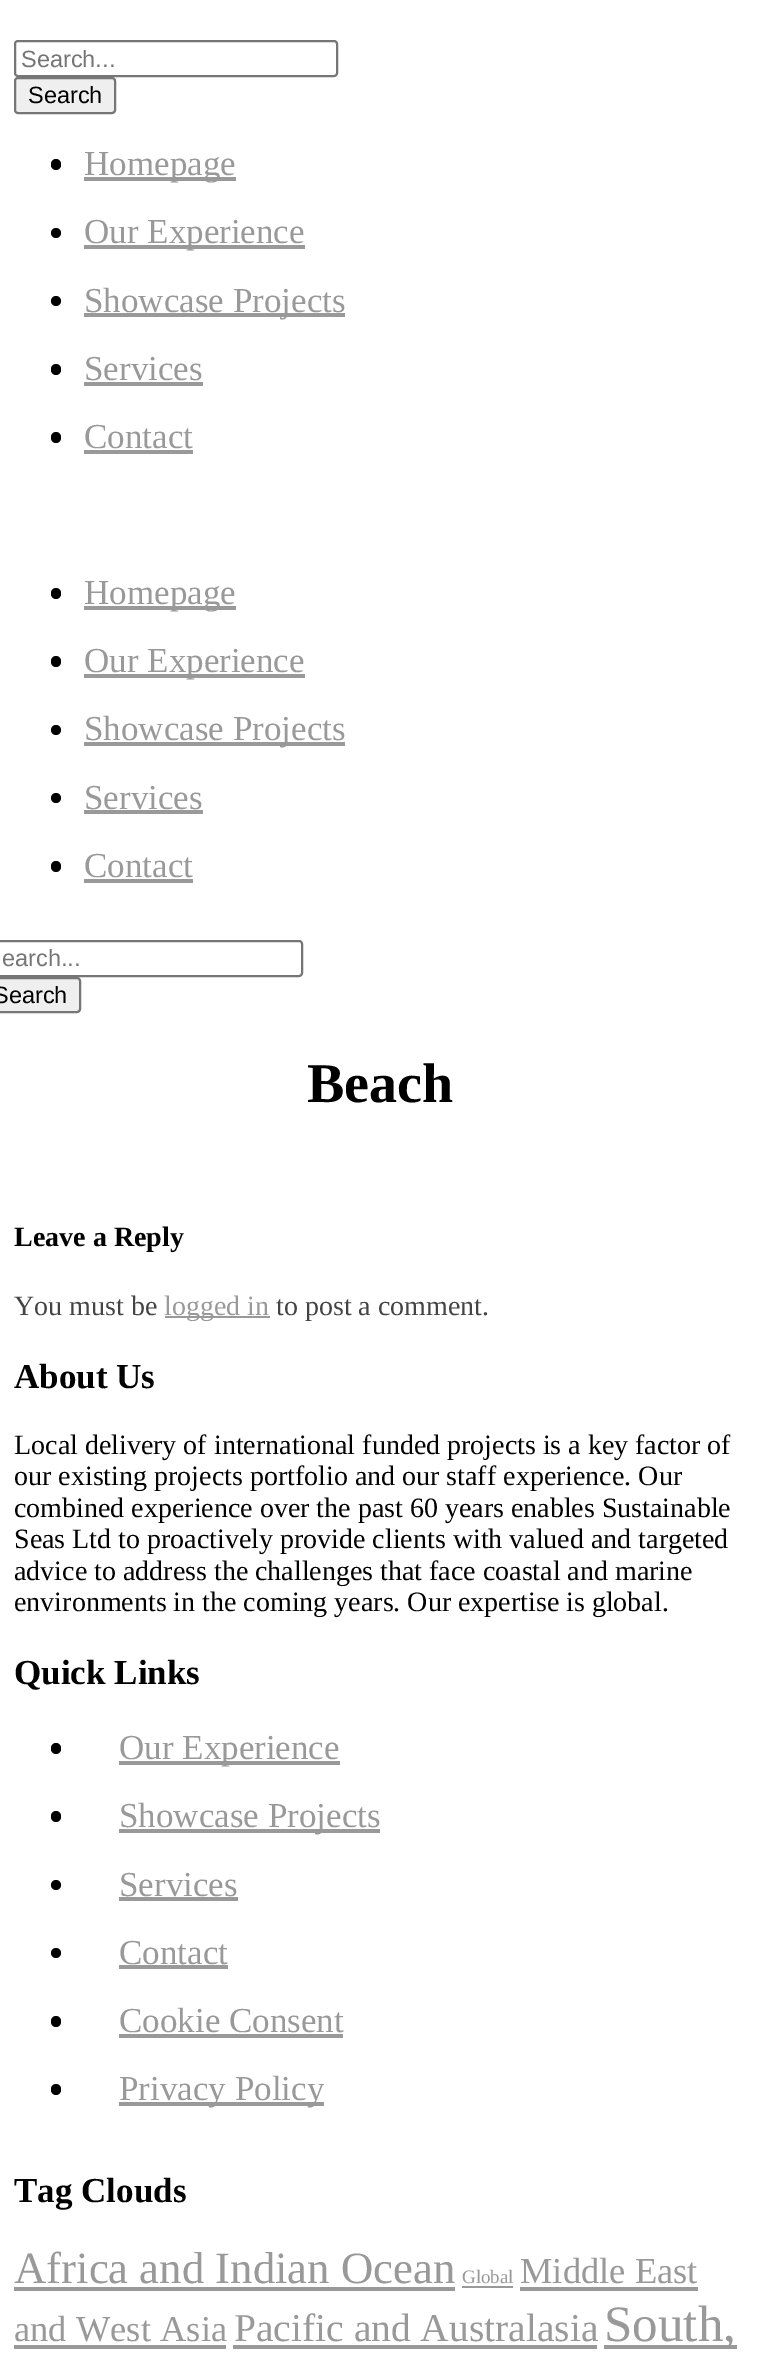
%!PS
<< /PageSize [758 2377] >> setpagedevice
/fl/fill load def
/st/stroke load def
/gs/gsave load def
/gr/grestore load def
/lw/setlinewidth load def
/co { dup -16 bitshift 255 div exch dup -8 bitshift 255 and 255 div exch 255 and 255 div setrgbcolor } def
/fn { [ exch dup neg 0 0 3 -1 roll 0 0 ] selectfont } def
/tx { co fn moveto show } def
/bx { co rectfill } def
/ci { newpath 0 360 arc closepath } def
/rr { 5 dict begin { /r /h /w /y /x } { exch def } forall
  x r add y moveto x w add y 2 copy h add r arct x w add y h add x 1 index r arct
  x y h add x y r arct x y 2 copy exch w add exch r arct closepath end } def
0 2377 translate 1 -1 scale
4 setmiterlimit
0 0 758 2377 16#FFFFFF bx
16#767676 co
2 lw
15 41 322 35 3 rr st
16#EFEFEF co
15 78 100 35 3 rr gs fl gr
16#767676 co
st
16#000000 co
51 159 10 11 5 rr fl
84 177 152 4 16#999999 bx
16#000000 co
56 233 5 ci fl
84 245 221 4 16#999999 bx
16#000000 co
56 301 5 ci fl
84 313 261 4 16#999999 bx
16#000000 co
51 364 10 11 5 rr fl
84 382 119 4 16#999999 bx
16#000000 co
51 432 10 11 5 rr fl
84 450 109 4 16#999999 bx
16#000000 co
51 588 10 11 5 rr fl
84 606 152 4 16#999999 bx
16#000000 co
51 656 10 11 5 rr fl
84 674 221 4 16#999999 bx
16#000000 co
56 730 5 ci fl
84 742 261 4 16#999999 bx
16#000000 co
56 798 5 ci fl
84 810 119 4 16#999999 bx
16#000000 co
51 861 10 11 5 rr fl
84 879 109 4 16#999999 bx
16#767676 co
-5 941 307 35 3 rr st
16#EFEFEF co
-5 978 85 34 3 rr gs fl gr
16#767676 co
st
165 1316 105 2 16#999999 bx
16#000000 co
51 1743 10 11 5 rr fl
119 1761 221 4 16#999999 bx
16#000000 co
51 1811 10 11 5 rr fl
119 1829 261 4 16#999999 bx
16#000000 co
56 1885 5 ci fl
119 1897 119 4 16#999999 bx
16#000000 co
56 1953 5 ci fl
119 1965 109 4 16#999999 bx
16#000000 co
51 2016 10 11 5 rr fl
119 2034 224 4 16#999999 bx
16#000000 co
51 2084 10 11 5 rr fl
119 2102 205 4 16#999999 bx
14 2287 441 4 16#999999 bx
462 2286 51 2 16#999999 bx
520 2287 178 4 16#999999 bx
14 2345 212 4 16#999999 bx
233 2345 364 4 16#999999 bx
604 2345 133 4 16#999999 bx
(Search...) 21 67 /LiberationSans-Regular 23.5 16#757575 tx
(Search) 28 103 /LiberationSans-Regular 23.5 16#000000 tx
(Homepage) 84 175 /LiberationSerif-Regular 35 16#999999 tx
(Our Experience) 84 243 /LiberationSerif-Regular 35 16#999999 tx
(Showcase Projects) 84 312 /LiberationSerif-Regular 35 16#999999 tx
(Services) 84 380 /LiberationSerif-Regular 35 16#999999 tx
(Contact) 84 448 /LiberationSerif-Regular 35 16#999999 tx
(Homepage) 84 604 /LiberationSerif-Regular 35 16#999999 tx
(Our Experience) 84 672 /LiberationSerif-Regular 35 16#999999 tx
(Showcase Projects) 84 740 /LiberationSerif-Regular 35 16#999999 tx
(Services) 84 809 /LiberationSerif-Regular 35 16#999999 tx
(Contact) 84 877 /LiberationSerif-Regular 35 16#999999 tx
(earch...) 2 966 /LiberationSans-Regular 23.5 16#757575 tx
(Search) -7 1003 /LiberationSans-Regular 23.5 16#000000 tx
(Beach) 307 1102 /LiberationSerif-Bold 56 16#000000 tx
(Leave a Reply) 14 1246 /LiberationSerif-Bold 28 16#000000 tx
(You must be) 14 1315 /LiberationSerif-Regular 28 16#444444 tx
(logged in) 164 1315 /LiberationSerif-Regular 28 16#999999 tx
(to post a comment.) 276 1315 /LiberationSerif-Regular 28 16#444444 tx
(About Us) 14 1388 /LiberationSerif-Bold 35 16#000000 tx
(Local delivery of international funded projects is a key factor of) 14 1454 /LiberationSerif-Regular 28 16#000000 tx
(our existing projects portfolio and our staff experience. Our) 14 1485 /LiberationSerif-Regular 28 16#000000 tx
(combined experience over the past 60 years enables Sustainable) 14 1517 /LiberationSerif-Regular 28 16#000000 tx
(Seas Ltd to proactively provide clients with valued and targeted) 14 1548 /LiberationSerif-Regular 28 16#000000 tx
(advice to address the challenges that face coastal and marine) 14 1580 /LiberationSerif-Regular 28 16#000000 tx
(environments in the coming years. Our expertise is global.) 14 1611 /LiberationSerif-Regular 28 16#000000 tx
(Quick Links) 14 1684 /LiberationSerif-Bold 35 16#000000 tx
(Our Experience) 119 1759 /LiberationSerif-Regular 35 16#999999 tx
(Showcase Projects) 119 1827 /LiberationSerif-Regular 35 16#999999 tx
(Services) 119 1896 /LiberationSerif-Regular 35 16#999999 tx
(Contact) 119 1964 /LiberationSerif-Regular 35 16#999999 tx
(Cookie Consent) 119 2032 /LiberationSerif-Regular 35 16#999999 tx
(Privacy Policy) 119 2100 /LiberationSerif-Regular 35 16#999999 tx
(Tag Clouds) 14 2202 /LiberationSerif-Bold 35 16#000000 tx
(Africa and Indian Ocean) 14 2283 /LiberationSerif-Regular 44.75 16#999999 tx
(Global) 462 2283 /LiberationSerif-Regular 19 16#999999 tx
(Middle East) 520 2283 /LiberationSerif-Regular 36.5 16#999999 tx
(and West Asia) 14 2341 /LiberationSerif-Regular 36.5 16#999999 tx
(Pacific and Australasia) 234 2341 /LiberationSerif-Regular 39.5 16#999999 tx
(South,) 604 2341 /LiberationSerif-Regular 51 16#999999 tx
showpage
